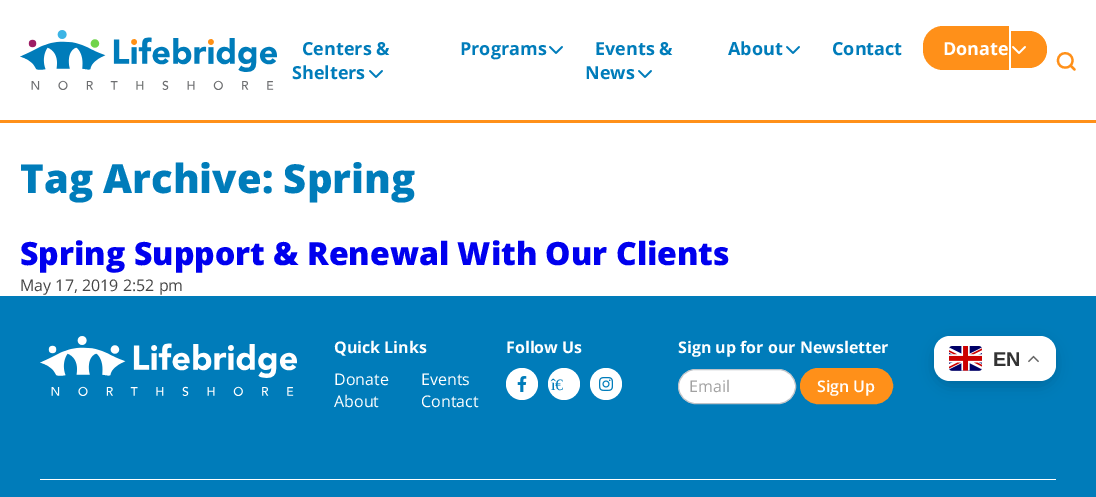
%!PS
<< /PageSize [1096 497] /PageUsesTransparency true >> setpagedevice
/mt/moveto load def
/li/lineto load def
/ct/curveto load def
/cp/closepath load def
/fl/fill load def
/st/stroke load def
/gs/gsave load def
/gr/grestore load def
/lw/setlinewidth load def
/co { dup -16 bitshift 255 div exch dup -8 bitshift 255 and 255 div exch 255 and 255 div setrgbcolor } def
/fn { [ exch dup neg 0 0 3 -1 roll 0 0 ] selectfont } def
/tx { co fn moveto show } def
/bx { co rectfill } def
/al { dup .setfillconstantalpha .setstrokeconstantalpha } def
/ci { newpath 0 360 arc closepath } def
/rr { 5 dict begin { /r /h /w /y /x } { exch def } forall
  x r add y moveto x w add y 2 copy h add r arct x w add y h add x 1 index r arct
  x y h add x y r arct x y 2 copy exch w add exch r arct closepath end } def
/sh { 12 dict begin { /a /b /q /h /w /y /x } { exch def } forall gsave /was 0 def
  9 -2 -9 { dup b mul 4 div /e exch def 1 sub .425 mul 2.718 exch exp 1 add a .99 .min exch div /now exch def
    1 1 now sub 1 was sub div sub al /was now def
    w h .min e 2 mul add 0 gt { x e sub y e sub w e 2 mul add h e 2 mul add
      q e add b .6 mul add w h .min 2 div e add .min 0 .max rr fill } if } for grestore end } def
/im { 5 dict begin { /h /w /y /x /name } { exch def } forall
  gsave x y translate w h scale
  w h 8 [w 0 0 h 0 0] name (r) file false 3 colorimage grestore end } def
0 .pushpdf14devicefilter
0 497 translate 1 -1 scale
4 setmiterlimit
0 0 1096 497 16#FFFFFF bx
0 120 1096 3 16#FF9019 bx
(media/1.raw) 20 30 257 60 im
(media/2.raw) 369 70 14 8 im
(media/2.raw) 549 46 14 8 im
(media/2.raw) 638 70 14 8 im
(media/2.raw) 786 46 14 8 im
943 26 mt 1009 26 li 1009 70 li 943 70 li 932 70 923 61 923 50 ct 923 46 li 923 35 932 26 943 26 ct cp fl
1011 31 mt 1029 31 li 1039 31 1047 39 1047 49 ct 1047 50 li 1047 60 1039 68 1029 68 ct 1011 68 li cp fl
(media/3.raw) 1012 46 14 8 im
2.2 lw
1 setlinecap
1 setlinejoin
1072.5 60.5 mt 1072.5 70 1058 70 1058 60.5 ct 1058 50.5 1072.5 51 1072.5 60.5 ct cp 1074.5 69.5 mt 1070.5 65.5 li st
0 296 1096 201 16#007CBA bx
(media/4.raw) 40 336 257 60 im
16#FFFFFF co
522 384 16 ci fl
(media/5.raw) 517 376 10 16 im
564 384 16 ci fl
606 384 16 ci fl
(media/6.raw) 599 377 14 14 im
678.5 369.5 117 34 17 rr gs fl gr
16#BFC3C8 co
1 lw
0 setlinecap
0 setlinejoin
st
16#FF9019 co
801 369 91 34 17 rr gs fl gr
2 lw
st
16#000000 co
934 341 122 45 16 7.5 .15 sh
16#FFFFFF co
934 336 122 45 16 rr fl
(media/7.raw) 949 346 33 25 im
(media/8.raw) 1028 355 11 8 im
40 479 1016 1 16#FFFFFF bx
(Centers &) 302 55 /OpenSans-Bold 18 16#007CBA tx
(Shelters) 292 79 /OpenSans-Bold 18 16#007CBA tx
(Programs) 460 55 /OpenSans-Bold 18 16#007CBA tx
(Events &) 595 55 /OpenSans-Bold 18 16#007CBA tx
(News) 585 79 /OpenSans-Bold 18 16#007CBA tx
(About) 728 55 /OpenSans-Bold 18 16#007CBA tx
(Contact) 832 55 /OpenSans-Bold 18 16#007CBA tx
(Donate) 943 55 /OpenSans-Bold 18 16#FFFFFF tx
(Tag Archive: Spring) 20 193 /OpenSans-ExtraBold 40 16#007CBA tx
(Spring Support & Renewal With Our Clients) 20 265 /OpenSans-ExtraBold 32 16#0000EE tx
(May 17, 2019 2:52 pm) 20 291 /OpenSans-Regular 16 16#454545 tx
(Quick Links) 334 353 /OpenSans-Bold 16 16#FFFFFF tx
(Donate) 334 385 /OpenSans-Regular 16 16#FFFFFF tx
(Events) 421 385 /OpenSans-Regular 16 16#FFFFFF tx
(About) 334 407 /OpenSans-Regular 16 16#FFFFFF tx
(Contact) 421 407 /OpenSans-Regular 16 16#FFFFFF tx
(Follow Us) 506 353 /OpenSans-Bold 16 16#FFFFFF tx
(î€) 551 390 /LiberationSerif-Regular 16 16#007CBA tx
(Sign up for our Newsletter) 678 353 /OpenSans-Bold 16 16#FFFFFF tx
(Email) 689 392 /OpenSans-Regular 16 16#A1A1A1 tx
(Sign Up) 817 392 /OpenSans-SemiBold 16 16#FFFFFF tx
(EN) 993 366 /LiberationSans-Bold 20 16#333333 tx
.poppdf14devicefilter showpage
